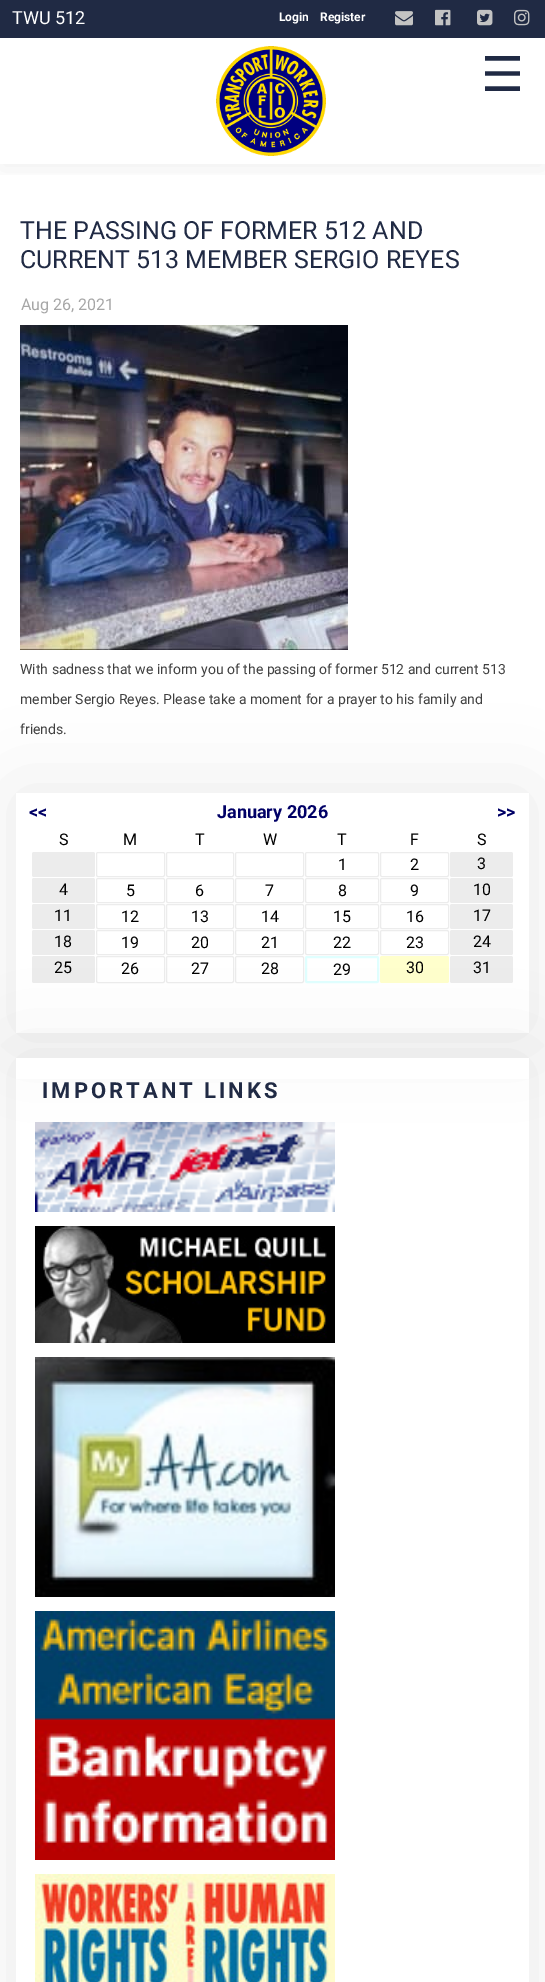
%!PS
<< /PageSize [545 1982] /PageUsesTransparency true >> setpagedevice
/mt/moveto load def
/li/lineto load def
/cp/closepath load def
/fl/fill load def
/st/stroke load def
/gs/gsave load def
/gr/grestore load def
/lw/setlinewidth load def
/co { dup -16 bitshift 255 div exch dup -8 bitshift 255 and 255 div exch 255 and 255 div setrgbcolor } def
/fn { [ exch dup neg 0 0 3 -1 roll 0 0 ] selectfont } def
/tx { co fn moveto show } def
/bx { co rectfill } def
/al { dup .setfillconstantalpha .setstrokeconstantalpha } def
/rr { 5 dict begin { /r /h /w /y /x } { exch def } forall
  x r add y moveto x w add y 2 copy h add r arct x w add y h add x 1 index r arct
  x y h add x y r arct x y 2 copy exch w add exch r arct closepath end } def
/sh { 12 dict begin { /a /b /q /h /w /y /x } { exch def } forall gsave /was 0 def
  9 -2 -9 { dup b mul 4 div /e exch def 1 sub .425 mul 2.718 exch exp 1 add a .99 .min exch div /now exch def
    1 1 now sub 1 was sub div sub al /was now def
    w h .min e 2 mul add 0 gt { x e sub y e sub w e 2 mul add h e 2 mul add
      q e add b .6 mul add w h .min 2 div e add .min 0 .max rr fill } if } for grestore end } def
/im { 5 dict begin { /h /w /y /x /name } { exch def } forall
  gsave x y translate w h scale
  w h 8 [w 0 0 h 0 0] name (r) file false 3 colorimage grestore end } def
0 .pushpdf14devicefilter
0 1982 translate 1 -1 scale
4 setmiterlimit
0 0 545 1982 16#FFFFFF bx
gs
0 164 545 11 rectclip
16#000000 co
0 6 545 164 0 12.5 .06 sh
gr
0 0 545 38 16#202A44 bx
(media/1.raw) 395 11 18 15 im
(media/2.raw) 435 9 16 17 im
(media/3.raw) 477 9 16 17 im
(media/4.raw) 514 9 16 17 im
(media/5.raw) 216 46 110 110 im
(media/6.raw) 20 325 328 325 im
gs
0 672 mt 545 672 li 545 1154 li 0 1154 li cp 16 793 mt 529 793 li 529 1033 li 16 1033 li cp eoclip newpath
16#000000 co
16 793 513 240 0 40 .08 sh
gr
16#ECECEC co
32 852 63 25 2 rr fl
96.5 852.5 68 24 1.5 rr st
166.5 852.5 67 24 1.5 rr st
235.5 852.5 68 24 1.5 rr st
305.5 852.5 73 24 1.5 rr st
380.5 852.5 68 24 1.5 rr st
450 852 63 25 2 rr fl
32 878 63 25 2 rr fl
96.5 878.5 68 24 1.5 rr st
166.5 878.5 67 24 1.5 rr st
235.5 878.5 68 24 1.5 rr st
305.5 878.5 73 24 1.5 rr st
380.5 878.5 68 24 1.5 rr st
450 878 63 25 2 rr fl
32 904 63 25 2 rr fl
96.5 904.5 68 24 1.5 rr st
166.5 904.5 67 24 1.5 rr st
235.5 904.5 68 24 1.5 rr st
305.5 904.5 73 24 1.5 rr st
380.5 904.5 68 24 1.5 rr st
450 904 63 25 2 rr fl
32 930 63 25 2 rr fl
96.5 930.5 68 24 1.5 rr st
166.5 930.5 67 24 1.5 rr st
235.5 930.5 68 24 1.5 rr st
305.5 930.5 73 24 1.5 rr st
380.5 930.5 68 24 1.5 rr st
450 930 63 25 2 rr fl
32 956 63 27 2 rr fl
96.5 956.5 68 26 1.5 rr st
166.5 956.5 67 26 1.5 rr st
235.5 956.5 68 26 1.5 rr st
16#E0FFFF co
2 lw
306 957 72 25 1 rr st
16#FFFFCC co
380 956 69 27 2 rr fl
16#ECECEC co
450 956 63 27 2 rr fl
16 1058 513 21 16#FFFFFF bx
gs
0 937 mt 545 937 li 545 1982 li 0 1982 li cp 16 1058 mt 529 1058 li 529 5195 li 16 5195 li cp eoclip newpath
16#000000 co
16 1058 513 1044 0 40 .08 sh
gr
(media/7.raw) 35 1122 300 90 im
(media/8.raw) 35 1226 300 117 im
(media/9.raw) 35 1357 300 240 im
(media/10.raw) 35 1611 300 249 im
(media/11.raw) 35 1874 300 108 im
(TWU 512) 12 24 /Roboto-Regular 18 16#FFFFFF tx
(Login) 279 21 /Roboto-Bold 12 16#FFFFFF tx
(Register) 320 21 /Roboto-Bold 12 16#FFFFFF tx
(☰) 481 91 /DejaVuSans-Regular 48 16#202A44 tx
(THE PASSING OF FORMER 512 AND) 20 239 /Roboto-Regular 25 16#202A44 tx
(CURRENT 513 MEMBER SERGIO REYES) 20 268 /Roboto-Regular 25 16#202A44 tx
(Aug 26, 2021) 21 310 /Roboto-Regular 16 16#A6A6A6 tx
(With sadness that we inform you of the passing of former 512 and current 513) 20 674 /Roboto-Regular 14 16#404040 tx
(member Sergio Reyes. Please take a moment for a prayer to his family and) 20 704 /Roboto-Regular 14 16#404040 tx
(friends.) 20 734 /Roboto-Regular 14 16#404040 tx
(<<) 29 818 /Roboto-Bold 18 16#000066 tx
(January 2026) 217 818 /Roboto-Bold 18 16#000066 tx
(>>) 497 818 /Roboto-Bold 18 16#000066 tx
(S) 59 845 /Roboto-Regular 16 16#000000 tx
(M) 123 845 /Roboto-Regular 16 16#000000 tx
(T) 195 845 /Roboto-Regular 16 16#000000 tx
(W) 263 845 /Roboto-Regular 16 16#000000 tx
(T) 337 845 /Roboto-Regular 16 16#000000 tx
(F) 410 845 /Roboto-Regular 16 16#000000 tx
(S) 477 845 /Roboto-Regular 16 16#000000 tx
(1) 338 870 /Roboto-Regular 16 16#000000 tx
(2) 410 870 /Roboto-Regular 16 16#000000 tx
(3) 477 869 /Roboto-Regular 16 16#000000 tx
(4) 59 895 /Roboto-Regular 16 16#000000 tx
(5) 126 896 /Roboto-Regular 16 16#000000 tx
(6) 195 896 /Roboto-Regular 16 16#000000 tx
(7) 265 896 /Roboto-Regular 16 16#000000 tx
(8) 338 896 /Roboto-Regular 16 16#000000 tx
(9) 410 896 /Roboto-Regular 16 16#000000 tx
(10) 473 895 /Roboto-Regular 16 16#000000 tx
(11) 54 921 /Roboto-Regular 16 16#000000 tx
(12) 121 922 /Roboto-Regular 16 16#000000 tx
(13) 191 922 /Roboto-Regular 16 16#000000 tx
(14) 261 922 /Roboto-Regular 16 16#000000 tx
(15) 333 922 /Roboto-Regular 16 16#000000 tx
(16) 406 922 /Roboto-Regular 16 16#000000 tx
(17) 473 921 /Roboto-Regular 16 16#000000 tx
(18) 54 947 /Roboto-Regular 16 16#000000 tx
(19) 121 948 /Roboto-Regular 16 16#000000 tx
(20) 191 948 /Roboto-Regular 16 16#000000 tx
(21) 261 948 /Roboto-Regular 16 16#000000 tx
(22) 333 948 /Roboto-Regular 16 16#000000 tx
(23) 406 948 /Roboto-Regular 16 16#000000 tx
(24) 473 947 /Roboto-Regular 16 16#000000 tx
(25) 54 973 /Roboto-Regular 16 16#000000 tx
(26) 121 974 /Roboto-Regular 16 16#000000 tx
(27) 191 974 /Roboto-Regular 16 16#000000 tx
(28) 261 974 /Roboto-Regular 16 16#000000 tx
(29) 333 975 /Roboto-Regular 16 16#000000 tx
(30) 406 973 /Roboto-Regular 16 16#000000 tx
(31) 473 973 /Roboto-Regular 16 16#000000 tx
/Roboto-Bold 22 fn
16#202A44 co
42 1098 mt 3 0 (IMPORTANT LINKS) ashow
.poppdf14devicefilter showpage
